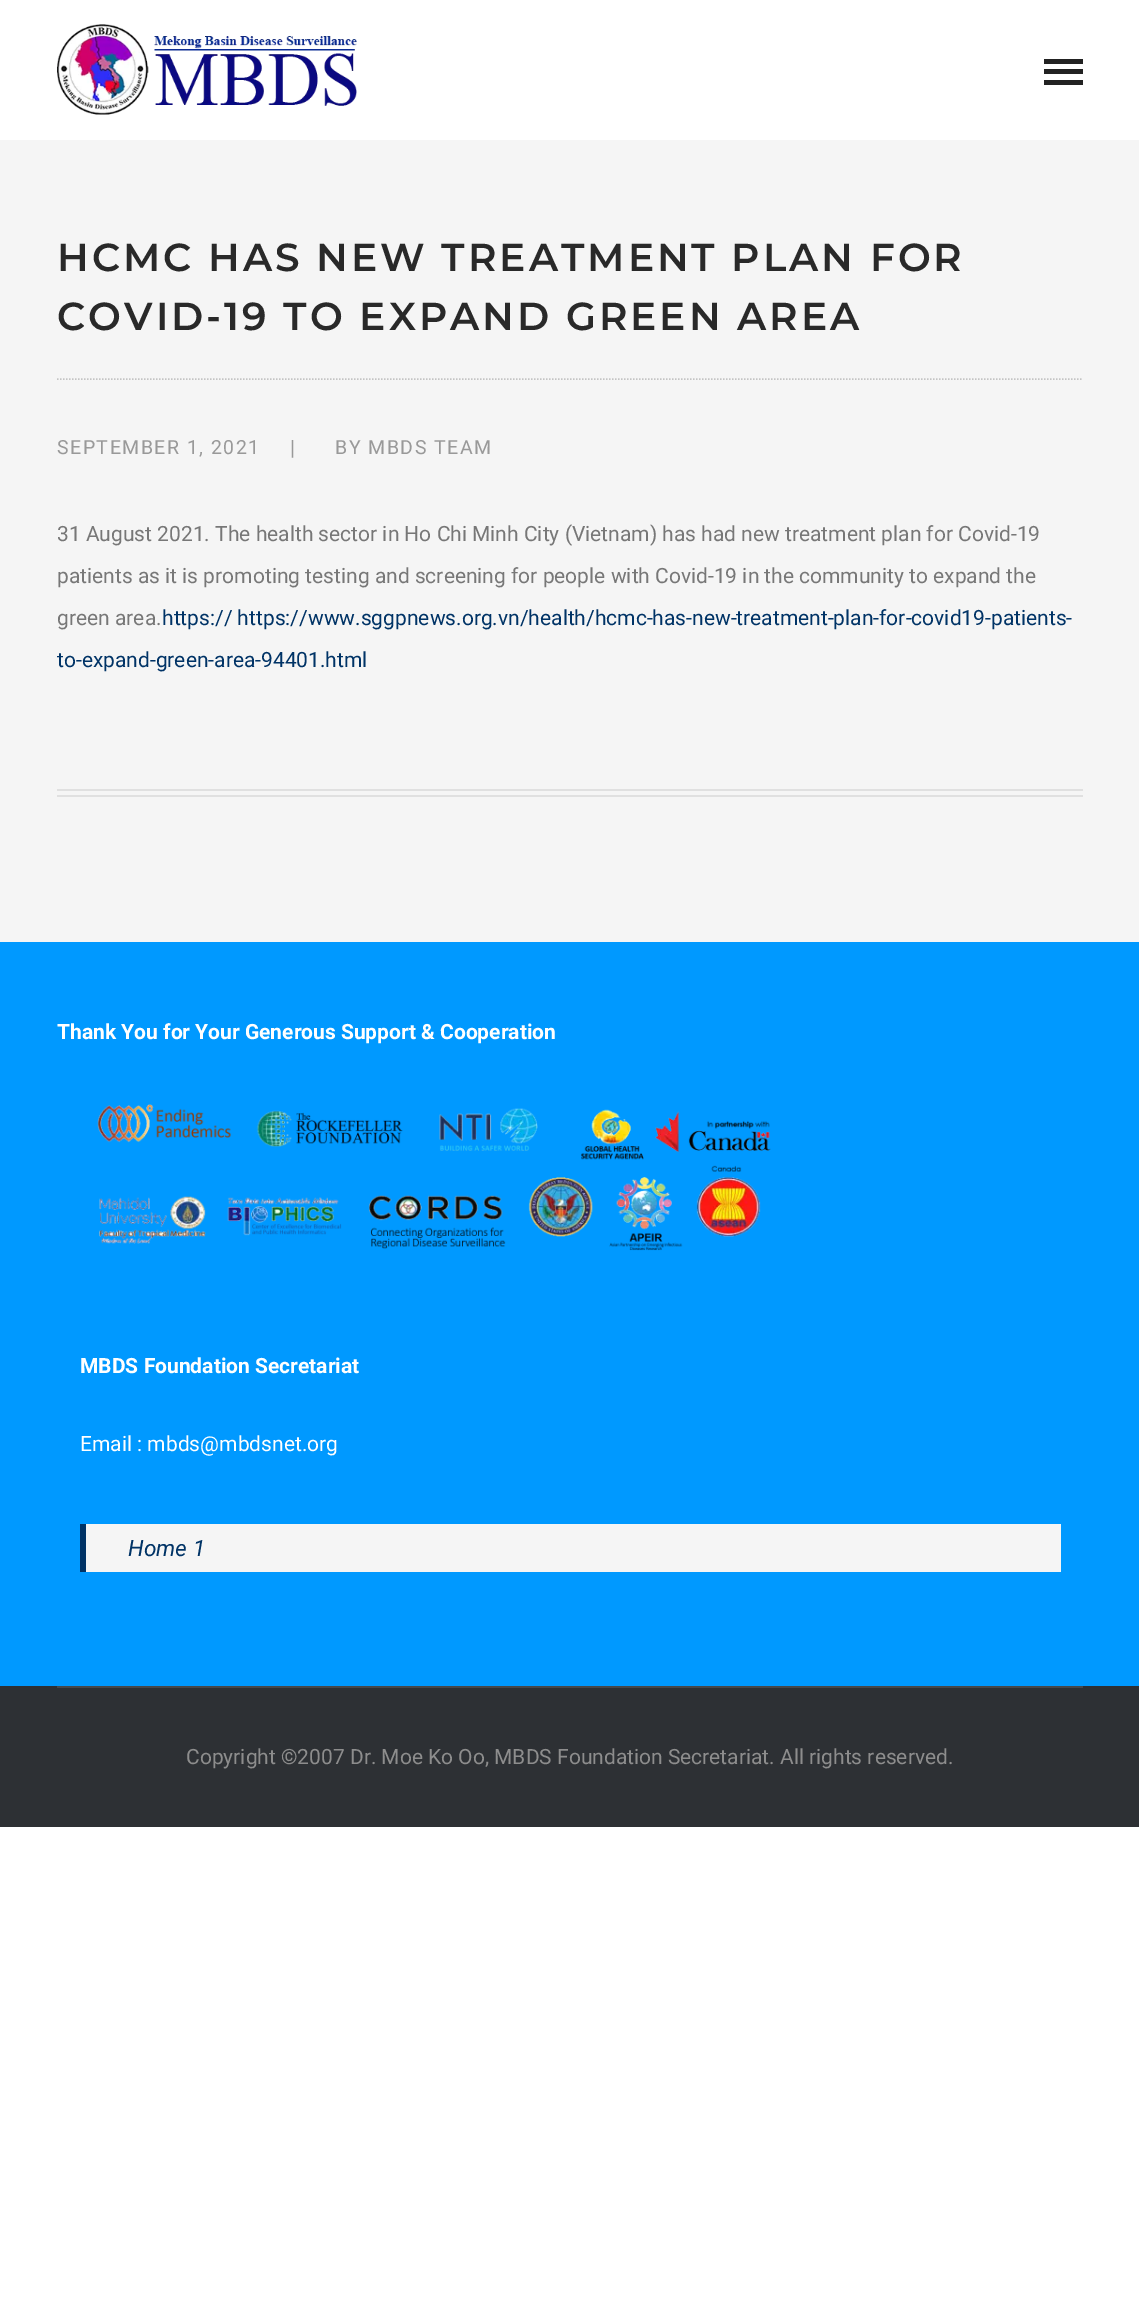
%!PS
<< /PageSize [1139 2302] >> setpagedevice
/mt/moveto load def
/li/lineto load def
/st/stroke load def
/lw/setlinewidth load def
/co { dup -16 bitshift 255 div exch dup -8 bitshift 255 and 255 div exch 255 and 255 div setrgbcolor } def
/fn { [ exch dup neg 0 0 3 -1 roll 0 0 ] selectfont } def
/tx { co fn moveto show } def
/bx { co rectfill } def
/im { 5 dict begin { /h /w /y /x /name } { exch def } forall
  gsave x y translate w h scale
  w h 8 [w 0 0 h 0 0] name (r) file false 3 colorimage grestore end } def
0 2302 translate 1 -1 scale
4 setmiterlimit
0 0 1139 2302 16#FFFFFF bx
(media/1.raw) 57 24 300 91 im
1044 59 39 5 16#222222 bx
1044 69 39 5 16#222222 bx
1044 80 39 5 16#222222 bx
0 140 1139 802 16#F5F5F5 bx
16#C4C4C4 co
1.5 lw
[1.5 1.5] 0 setdash
57 379 mt 1083 379 li st
57 789 1026 2 16#E0E0E0 bx
57 795 1026 2 16#E0E0E0 bx
0 942 1139 744 16#0099FF bx
(media/2.raw) 97 1104 674 147 im
86 1524 975 48 16#F5F5F5 bx
80 1524 6 48 16#003366 bx
0 1686 1139 141 16#2D3034 bx
57 1686 1026 2 16#45484B bx
/Montserrat-Thin 39 fn
16#292929 co
57 271 mt 3 0 (HCMC HAS NEW TREATMENT PLAN FOR) ashow
57 330 mt 3 0 (COVID-19 TO EXPAND GREEN AREA) ashow
/Roboto-Regular 19.5 fn
16#999999 co
57 454 mt 1.5 0 (SEPTEMBER 1, 2021) ashow
/Roboto-Regular 21 fn
290 455 mt 1.5 0 (|) ashow
/Roboto-Regular 19.5 fn
335 454 mt 1.5 0 (BY MBDS TEAM) ashow
(31 August 2021. The health sector in Ho Chi Minh City \(Vietnam\) has had new treatment plan for Covid-19) 57 541 /Roboto-Regular 21 16#777777 tx
(patients as it is promoting testing and screening for people with Covid-19 in the community to expand the) 57 583 /Roboto-Regular 21 16#777777 tx
(green area.) 57 625 /Roboto-Regular 21 16#777777 tx
(https:// https://www.sggpnews.org.vn/health/hcmc-has-new-treatment-plan-for-covid19-patients-) 162 625 /Roboto-Regular 21 16#003366 tx
(to-expand-green-area-94401.html) 57 667 /Roboto-Regular 21 16#003366 tx
(Thank You for Your Generous Support & Cooperation) 57 1039 /Roboto-Bold 21 16#FFFFFF tx
(MBDS Foundation Secretariat) 80 1373 /Roboto-Bold 21 16#FFFFFF tx
(Email : mbds@mbdsnet.org) 80 1451 /Roboto-Regular 21 16#FFFFFF tx
(Home 1) 128 1556 /Roboto-Italic 22.5 16#003366 tx
(Copyright ©2007 Dr. Moe Ko Oo, MBDS Foundation Secretariat. All rights reserved.) 186 1764 /Roboto-Regular 21 16#8D8D8D tx
showpage
